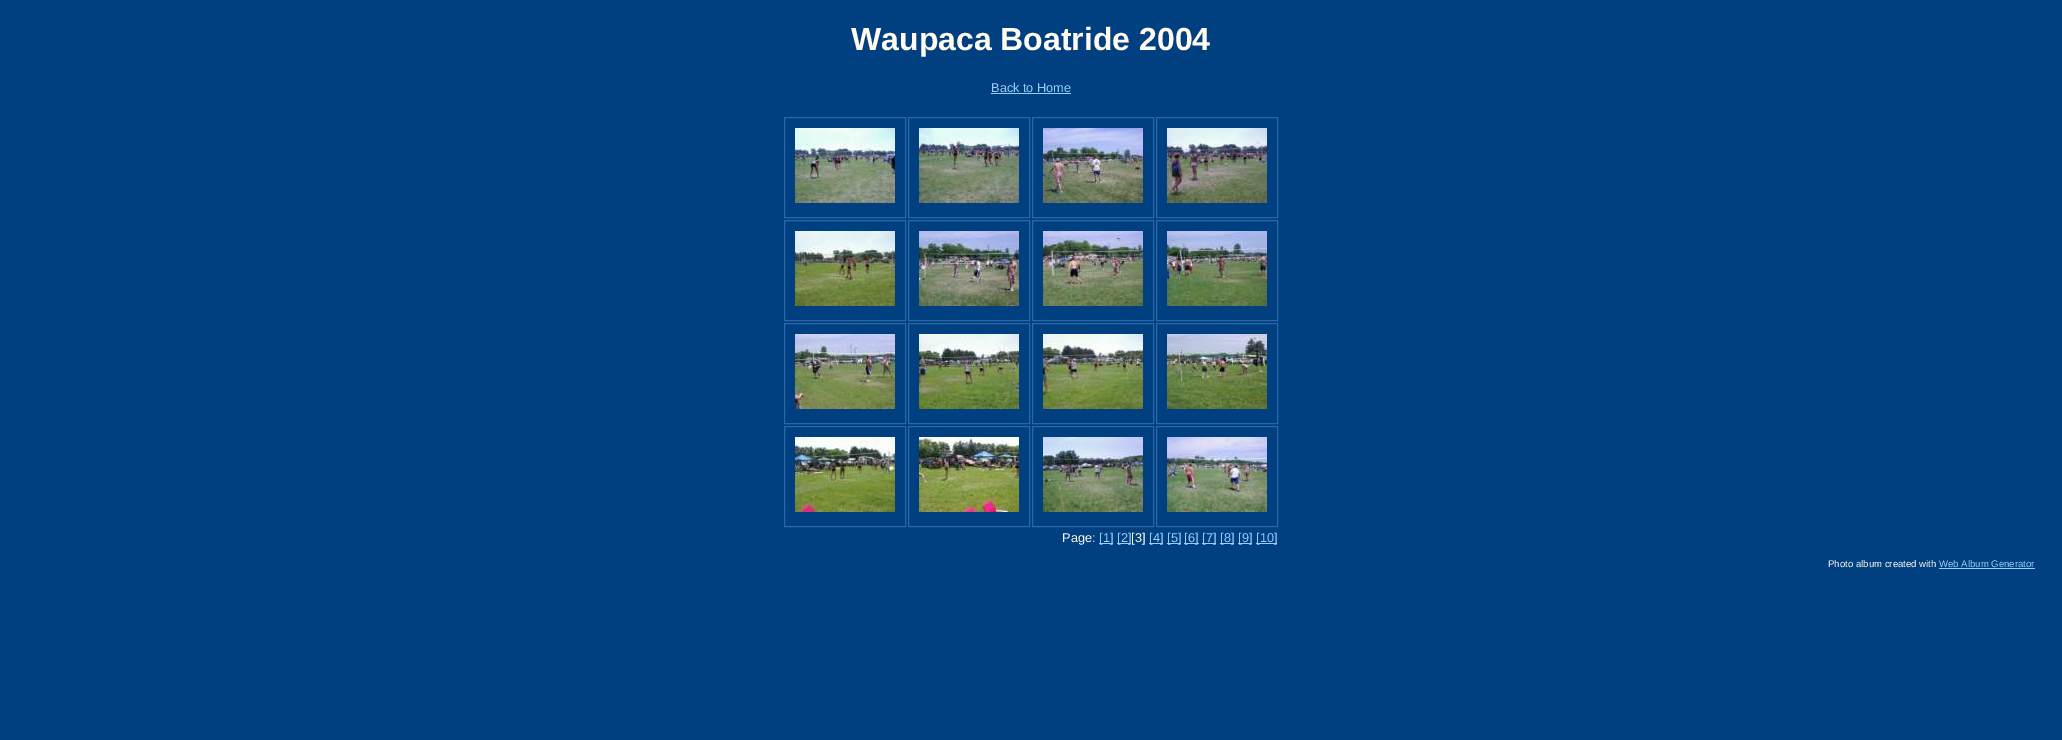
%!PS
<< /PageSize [2062 740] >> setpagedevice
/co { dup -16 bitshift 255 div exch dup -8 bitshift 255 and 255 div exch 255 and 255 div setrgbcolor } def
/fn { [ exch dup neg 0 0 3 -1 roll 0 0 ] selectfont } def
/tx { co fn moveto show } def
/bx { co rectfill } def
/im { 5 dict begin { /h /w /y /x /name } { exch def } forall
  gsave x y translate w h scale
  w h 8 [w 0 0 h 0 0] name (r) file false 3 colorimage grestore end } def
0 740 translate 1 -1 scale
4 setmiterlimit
0 0 2062 740 16#004080 bx
991 93 80 1 16#9BCDFF bx
16#2868A8 co
784.5 117.5 121 100 rectstroke
(media/1.raw) 795 128 100 75 im
908.5 117.5 121 100 rectstroke
(media/2.raw) 919 128 100 75 im
1032.5 117.5 121 100 rectstroke
(media/3.raw) 1043 128 100 75 im
1156.5 117.5 121 100 rectstroke
(media/4.raw) 1167 128 100 75 im
784.5 220.5 121 100 rectstroke
(media/5.raw) 795 231 100 75 im
908.5 220.5 121 100 rectstroke
(media/6.raw) 919 231 100 75 im
1032.5 220.5 121 100 rectstroke
(media/7.raw) 1043 231 100 75 im
1156.5 220.5 121 100 rectstroke
(media/8.raw) 1167 231 100 75 im
784.5 323.5 121 100 rectstroke
(media/9.raw) 795 334 100 75 im
908.5 323.5 121 100 rectstroke
(media/10.raw) 919 334 100 75 im
1032.5 323.5 121 100 rectstroke
(media/11.raw) 1043 334 100 75 im
1156.5 323.5 121 100 rectstroke
(media/12.raw) 1167 334 100 75 im
784.5 426.5 121 100 rectstroke
(media/13.raw) 795 437 100 75 im
908.5 426.5 121 100 rectstroke
(media/14.raw) 919 437 100 75 im
1032.5 426.5 121 100 rectstroke
(media/15.raw) 1043 437 100 75 im
1156.5 426.5 121 100 rectstroke
(media/16.raw) 1167 437 100 75 im
1099 543 14 1 16#9BCDFF bx
1117 543 14 1 16#9BCDFF bx
1149 543 14 1 16#9BCDFF bx
1167 543 14 1 16#9BCDFF bx
1184 543 15 1 16#9BCDFF bx
1202 543 14 1 16#9BCDFF bx
1220 543 14 1 16#9BCDFF bx
1238 543 14 1 16#9BCDFF bx
1256 543 21 1 16#9BCDFF bx
1939 568 96 1 16#9BCDFF bx
(Waupaca Boatride 2004) 851 50 /LiberationSans-Bold 32 16#FFFBF0 tx
(Back to Home) 991 92 /LiberationSans-Regular 12.75 16#9BCDFF tx
(Page:) 1062 542 /LiberationSans-Regular 12.75 16#FFFBF0 tx
([1]) 1099 542 /LiberationSans-Regular 12.75 16#9BCDFF tx
([2]) 1117 542 /LiberationSans-Regular 12.75 16#9BCDFF tx
([3]) 1131 542 /LiberationSans-Regular 12.75 16#FFFBF0 tx
([4]) 1149 542 /LiberationSans-Regular 12.75 16#9BCDFF tx
([5]) 1167 542 /LiberationSans-Regular 12.75 16#9BCDFF tx
([6]) 1184 542 /LiberationSans-Regular 12.75 16#9BCDFF tx
([7]) 1202 542 /LiberationSans-Regular 12.75 16#9BCDFF tx
([8]) 1220 542 /LiberationSans-Regular 12.75 16#9BCDFF tx
([9]) 1238 542 /LiberationSans-Regular 12.75 16#9BCDFF tx
([10]) 1256 542 /LiberationSans-Regular 12.75 16#9BCDFF tx
(Photo album created with) 1828 567 /LiberationSans-Regular 9.6 16#FFFBF0 tx
(Web Album Generator) 1939 567 /LiberationSans-Regular 9.6 16#9BCDFF tx
showpage
